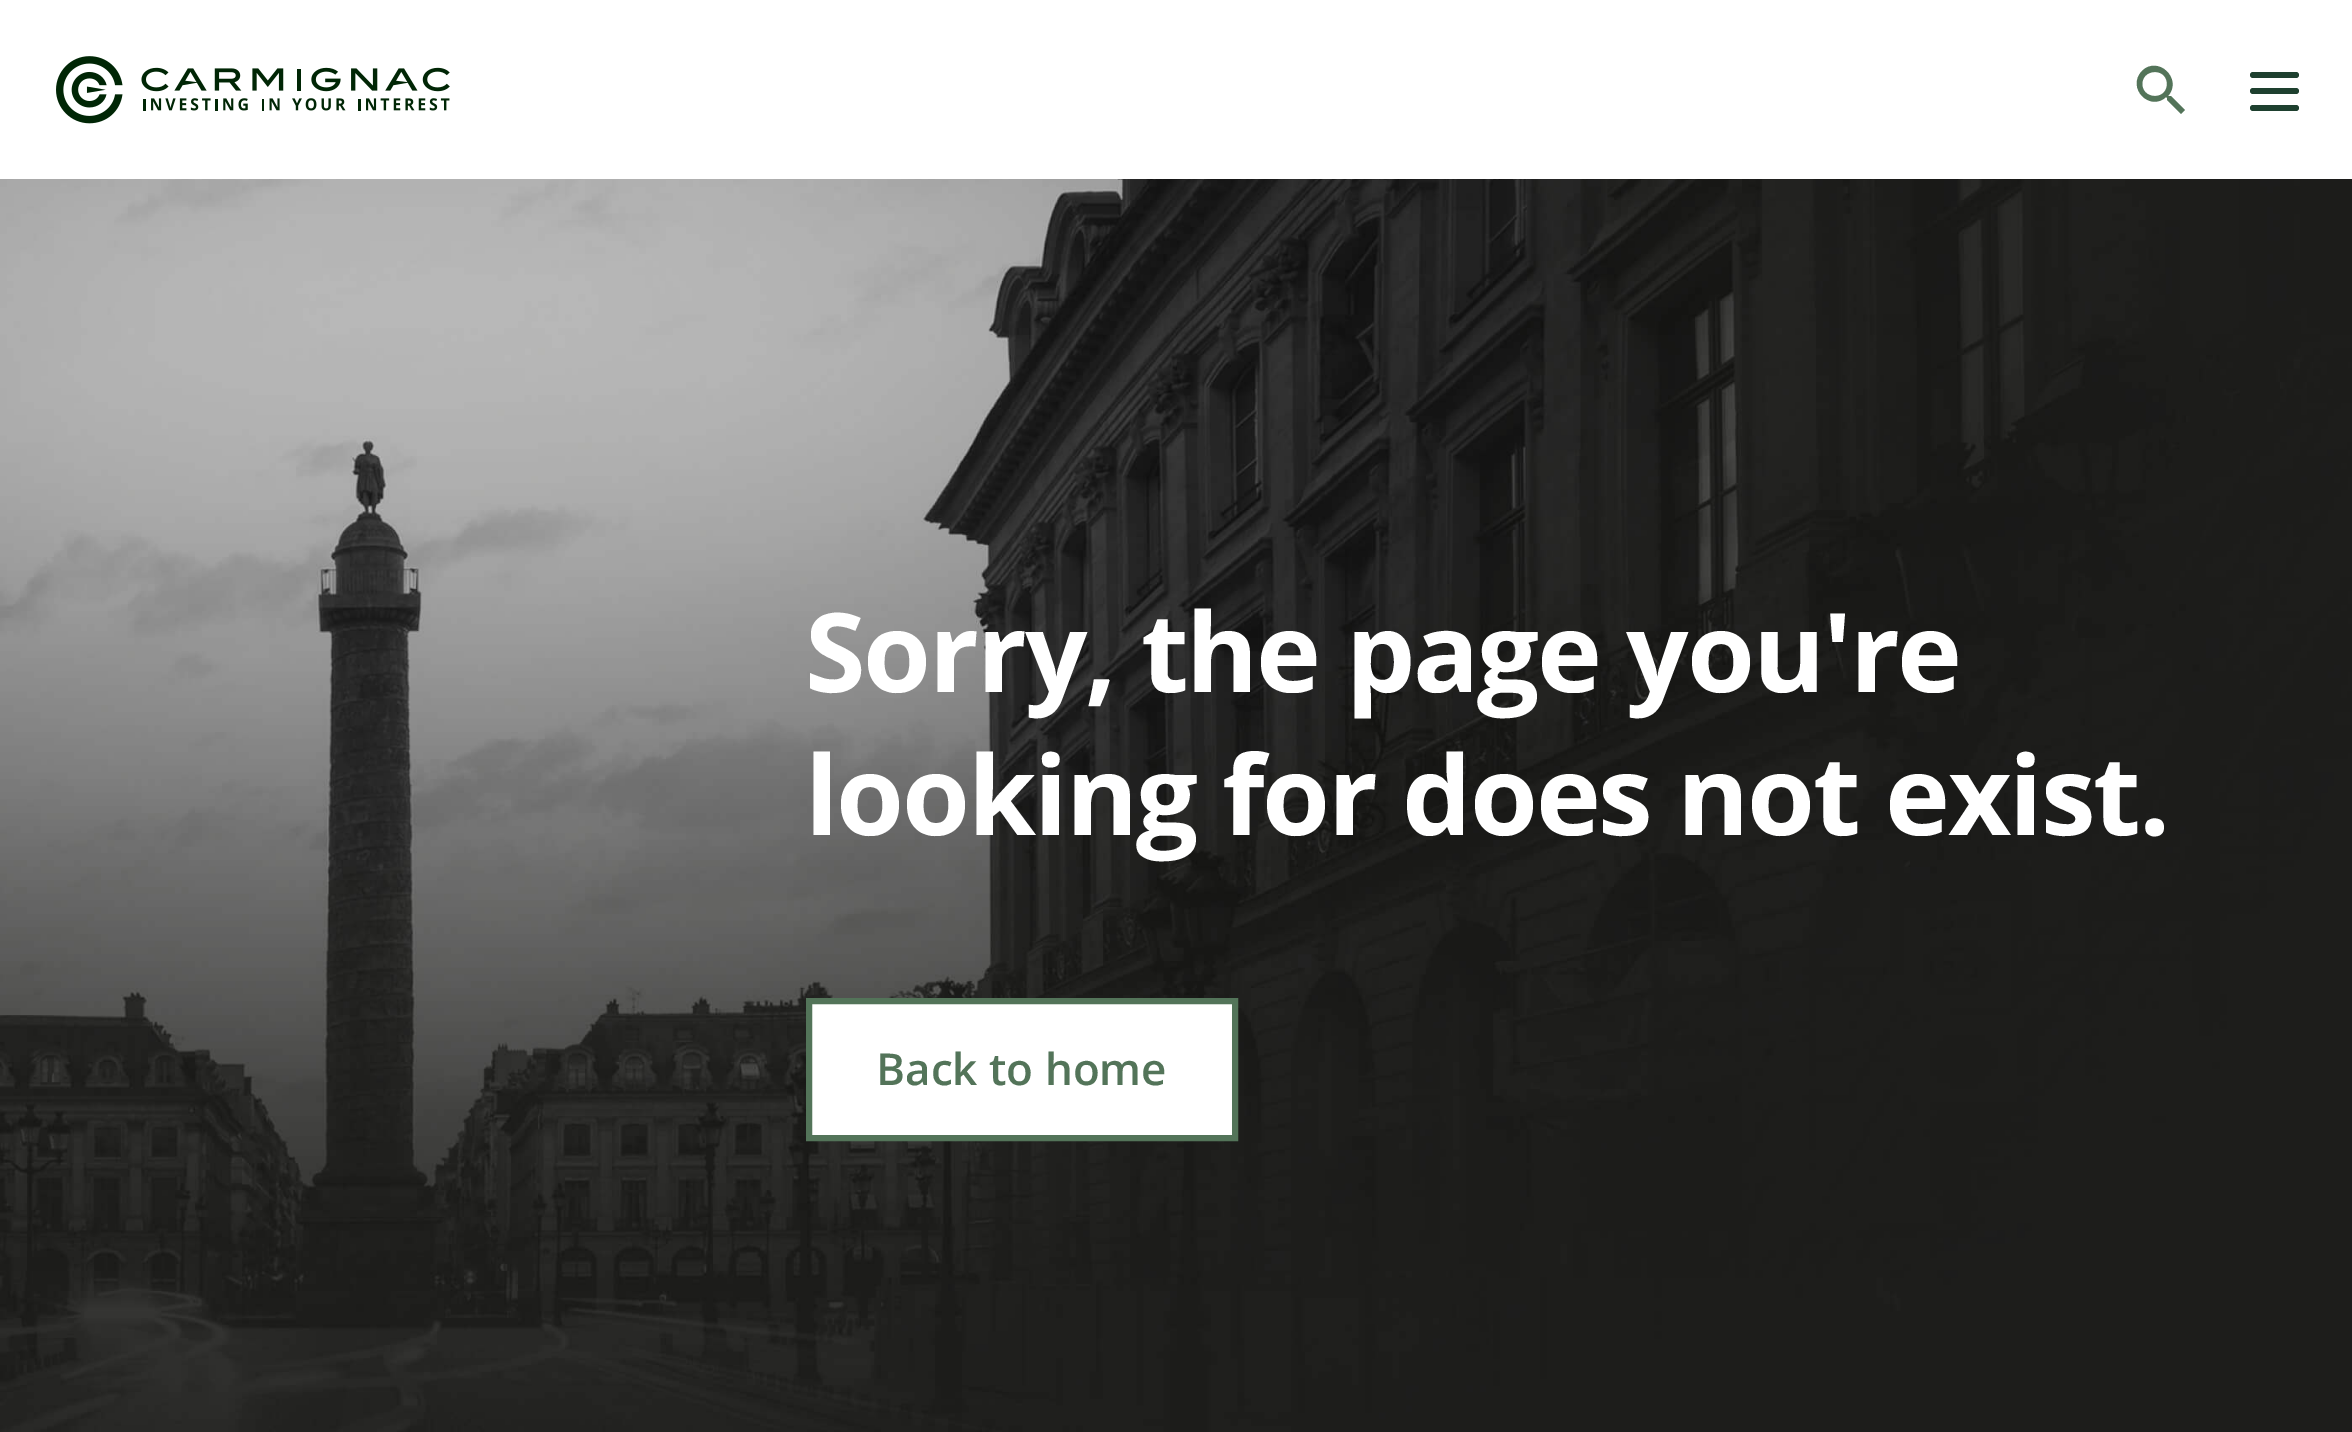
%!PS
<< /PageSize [2352 1432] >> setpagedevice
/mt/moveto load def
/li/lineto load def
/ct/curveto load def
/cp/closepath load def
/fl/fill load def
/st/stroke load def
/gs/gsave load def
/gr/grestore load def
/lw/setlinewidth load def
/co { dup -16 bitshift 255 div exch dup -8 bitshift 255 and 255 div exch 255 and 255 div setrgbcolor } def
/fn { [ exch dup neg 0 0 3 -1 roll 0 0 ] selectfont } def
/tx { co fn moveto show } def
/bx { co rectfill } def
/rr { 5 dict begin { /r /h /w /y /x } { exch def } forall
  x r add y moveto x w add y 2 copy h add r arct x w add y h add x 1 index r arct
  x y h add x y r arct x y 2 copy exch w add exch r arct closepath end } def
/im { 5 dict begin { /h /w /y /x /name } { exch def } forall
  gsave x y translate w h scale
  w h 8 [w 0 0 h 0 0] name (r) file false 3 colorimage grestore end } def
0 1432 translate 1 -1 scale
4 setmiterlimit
0 0 2352 1432 16#FFFFFF bx
(media/1.raw) 56 56 394 68 im
16#537459 co
2171 96 mt 2169 96 li 2168 96 li 2183 79 2158 55 2142 71 ct 2126 88 2150 112 2166 97 ct 2167 98 li 2167 100 li 2181 114 li 2185 110 li cp 2155 96 mt 2138 96 2138 72 2155 72 ct 2171 72 2171 96 2155 96 ct cp fl
16#1E402F co
2250 72 49 6 3 rr fl
2250 88 49 6 3 rr fl
2250 105 49 6 3 rr fl
(media/2.raw) 0 179 2352 1253 im
16#FFFFFF co
809 1001 mt 1235 1001 li 1235 1138 li 809 1138 li cp gs fl gr
16#537459 co
6 lw
st
/OpenSans-Bold 110 fn
16#FFFFFF co
805 692 mt -2.2 0 (Sorry, the page you're) ashow
805 835 mt -2.2 0 (looking for does not exist.) ashow
(Back to home) 876 1085 /OpenSans-SemiBold 44 16#537459 tx
showpage
